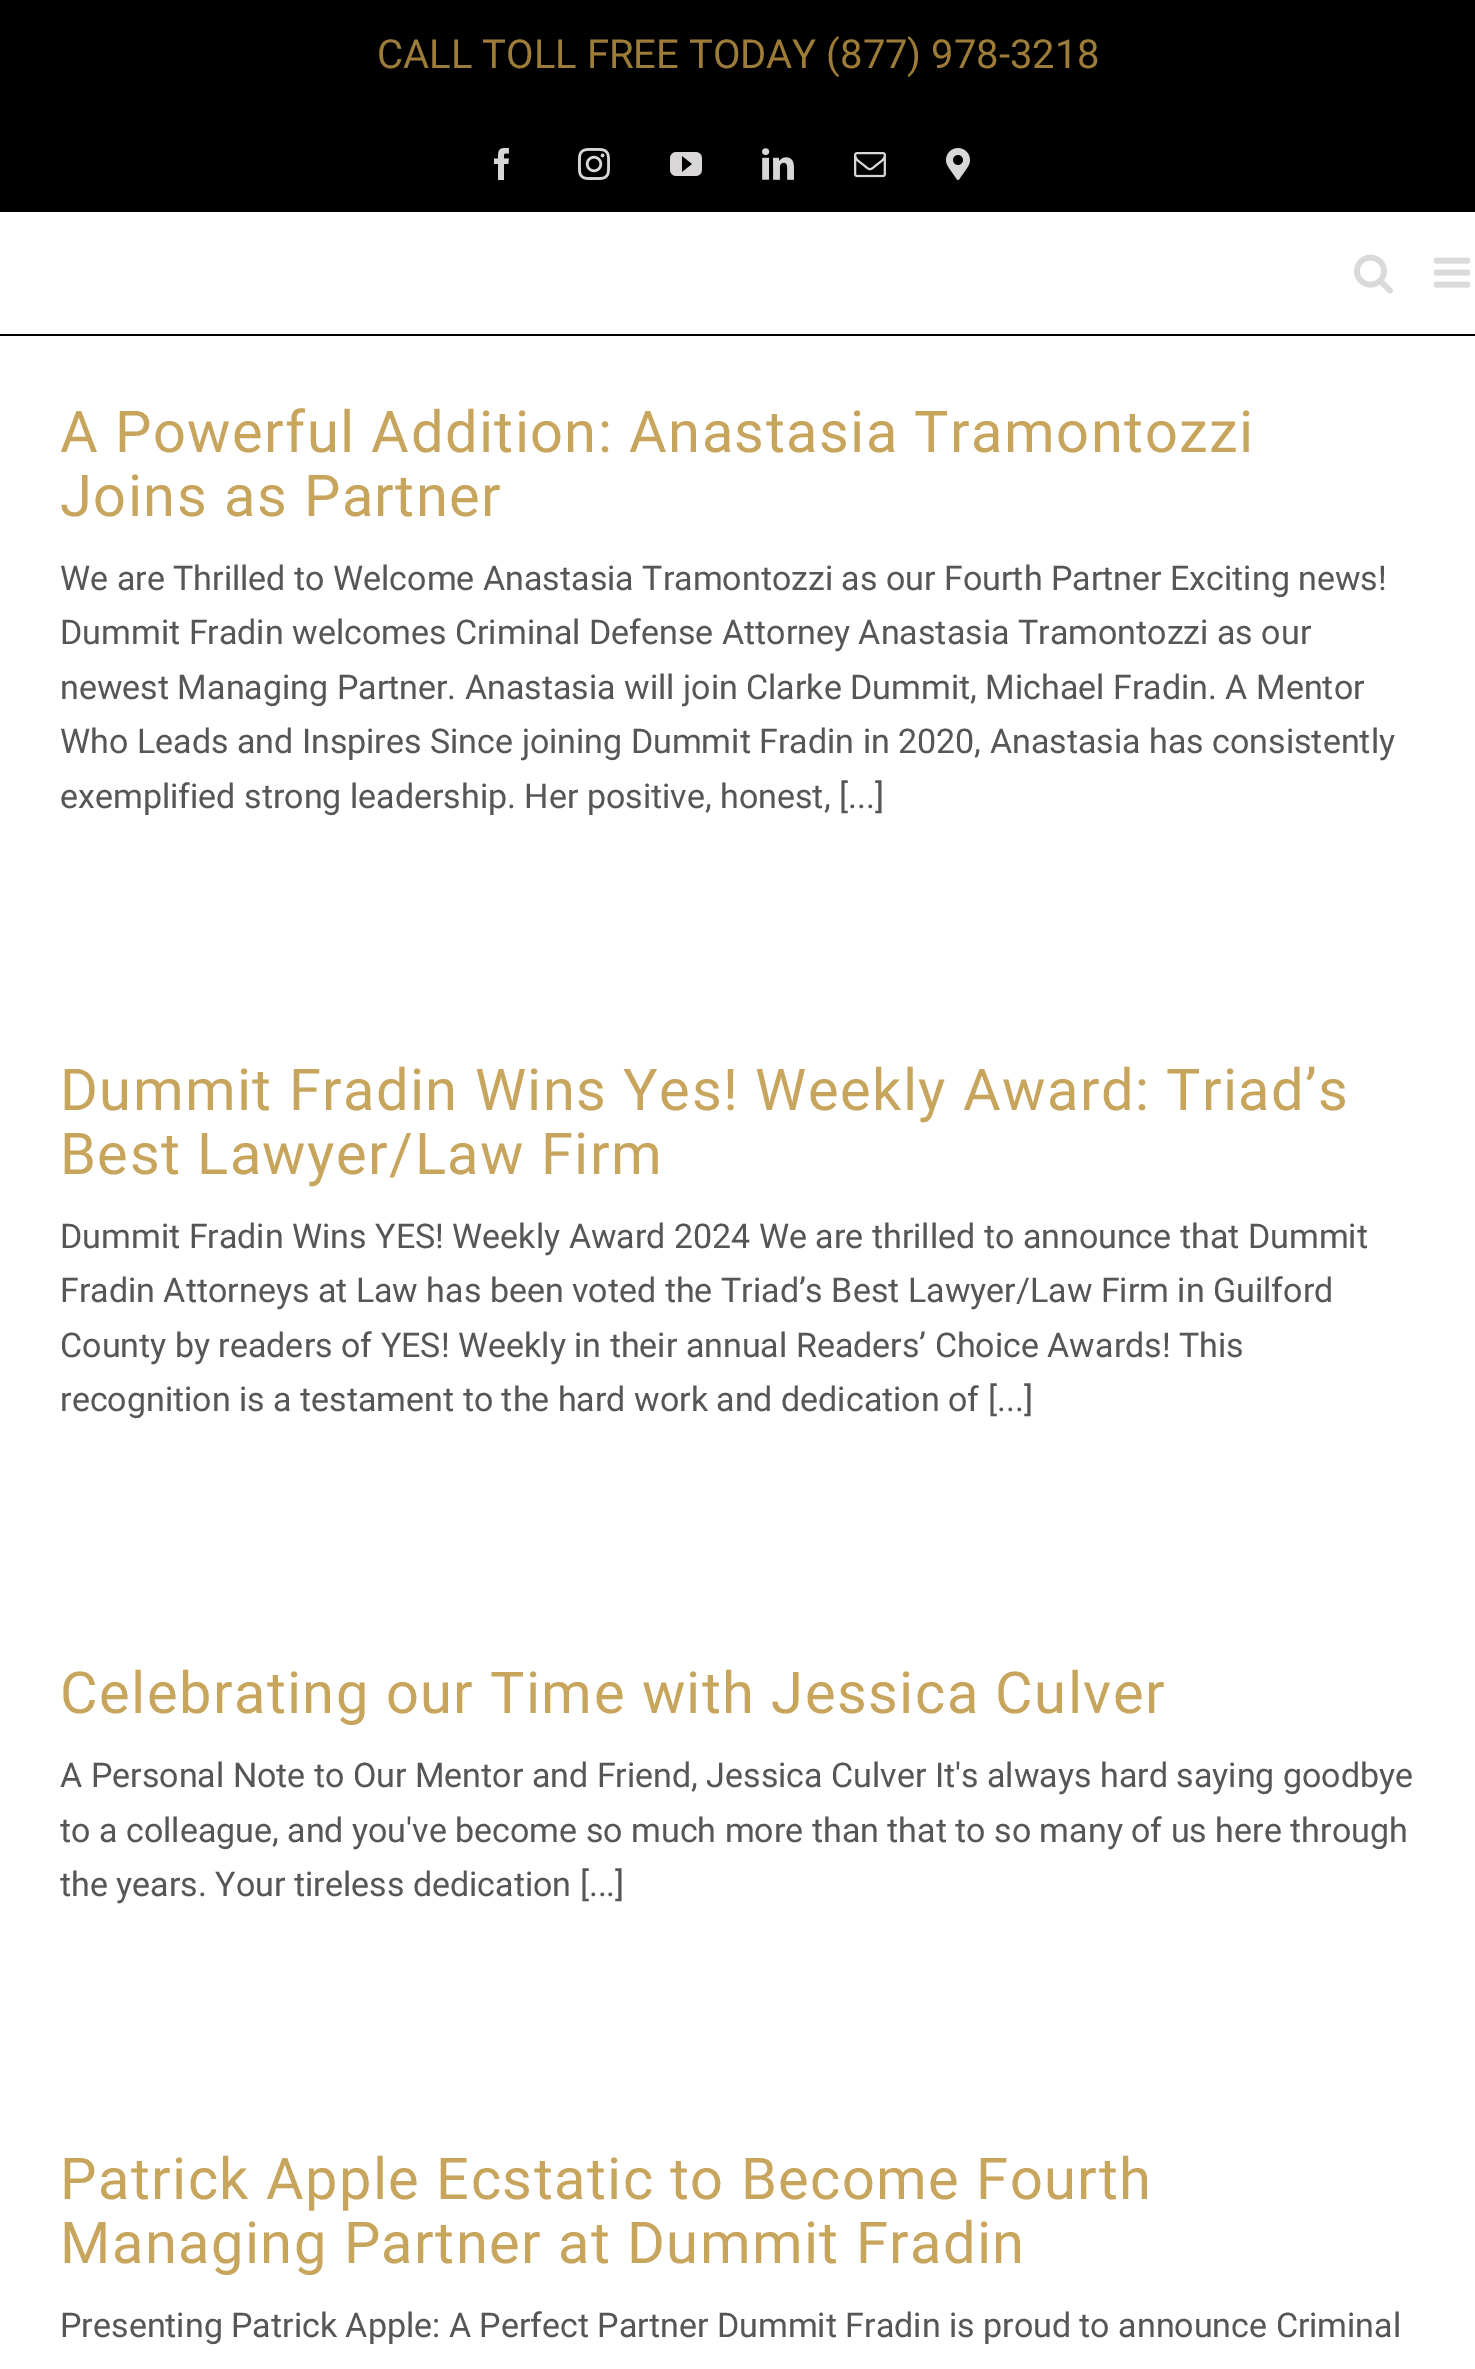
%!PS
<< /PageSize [1475 2369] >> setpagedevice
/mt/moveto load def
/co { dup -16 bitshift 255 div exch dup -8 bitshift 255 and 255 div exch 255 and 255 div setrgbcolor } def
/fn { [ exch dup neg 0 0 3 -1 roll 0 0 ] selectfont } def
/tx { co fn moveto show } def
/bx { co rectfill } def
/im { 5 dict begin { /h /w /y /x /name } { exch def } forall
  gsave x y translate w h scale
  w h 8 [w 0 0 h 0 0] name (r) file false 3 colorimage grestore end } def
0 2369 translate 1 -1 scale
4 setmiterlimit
0 0 1475 2369 16#FFFFFF bx
0 0 1475 212 16#000000 bx
(media/1.raw) 494 148 15 32 im
(media/2.raw) 578 148 32 32 im
(media/3.raw) 670 152 32 24 im
(media/4.raw) 762 148 32 32 im
(media/5.raw) 854 152 32 26 im
(media/6.raw) 946 148 24 32 im
0 334 1475 2 16#000000 bx
(media/7.raw) 1354 254 39 40 im
(media/8.raw) 1434 257 36 31 im
(CALL TOLL FREE TODAY \(877\) 978-3218) 377 68 /Roboto-Regular 40 16#9C7C38 tx
/Roboto-Regular 57.8 fn
16#C8A55D co
60 452 mt 1.45 0 (A Powerful Addition: Anastasia Tramontozzi) ashow
60 516 mt 1.45 0 (Joins as Partner) ashow
(We are Thrilled to Welcome Anastasia Tramontozzi as our Fourth Partner Exciting news!) 60 590 /Roboto-Regular 34 16#575656 tx
(Dummit Fradin welcomes Criminal Defense Attorney Anastasia Tramontozzi as our) 60 644 /Roboto-Regular 34 16#575656 tx
(newest Managing Partner. Anastasia will join Clarke Dummit, Michael Fradin. A Mentor) 60 699 /Roboto-Regular 34 16#575656 tx
(Who Leads and Inspires Since joining Dummit Fradin in 2020, Anastasia has consistently) 60 753 /Roboto-Regular 34 16#575656 tx
(exemplified strong leadership. Her positive, honest, [...]) 60 808 /Roboto-Regular 34 16#575656 tx
/Roboto-Regular 57.8 fn
16#C8A55D co
60 1110 mt 1.45 0 (Dummit Fradin Wins Yes! Weekly Award: Triad’s) ashow
60 1174 mt 1.45 0 (Best Lawyer/Law Firm) ashow
(Dummit Fradin Wins YES! Weekly Award 2024 We are thrilled to announce that Dummit) 60 1248 /Roboto-Regular 34 16#575656 tx
(Fradin Attorneys at Law has been voted the Triad’s Best Lawyer/Law Firm in Guilford) 60 1302 /Roboto-Regular 34 16#575656 tx
(County by readers of YES! Weekly in their annual Readers’ Choice Awards! This) 60 1357 /Roboto-Regular 34 16#575656 tx
(recognition is a testament to the hard work and dedication of [...]) 60 1411 /Roboto-Regular 34 16#575656 tx
/Roboto-Regular 57.8 fn
16#C8A55D co
60 1713 mt 1.45 0 (Celebrating our Time with Jessica Culver) ashow
(A Personal Note to Our Mentor and Friend, Jessica Culver It's always hard saying goodbye) 60 1787 /Roboto-Regular 34 16#575656 tx
(to a colleague, and you've become so much more than that to so many of us here through) 60 1842 /Roboto-Regular 34 16#575656 tx
(the years. Your tireless dedication [...]) 60 1896 /Roboto-Regular 34 16#575656 tx
/Roboto-Regular 57.8 fn
16#C8A55D co
60 2199 mt 1.45 0 (Patrick Apple Ecstatic to Become Fourth) ashow
60 2263 mt 1.45 0 (Managing Partner at Dummit Fradin) ashow
(Presenting Patrick Apple: A Perfect Partner Dummit Fradin is proud to announce Criminal) 60 2337 /Roboto-Regular 34 16#575656 tx
showpage
